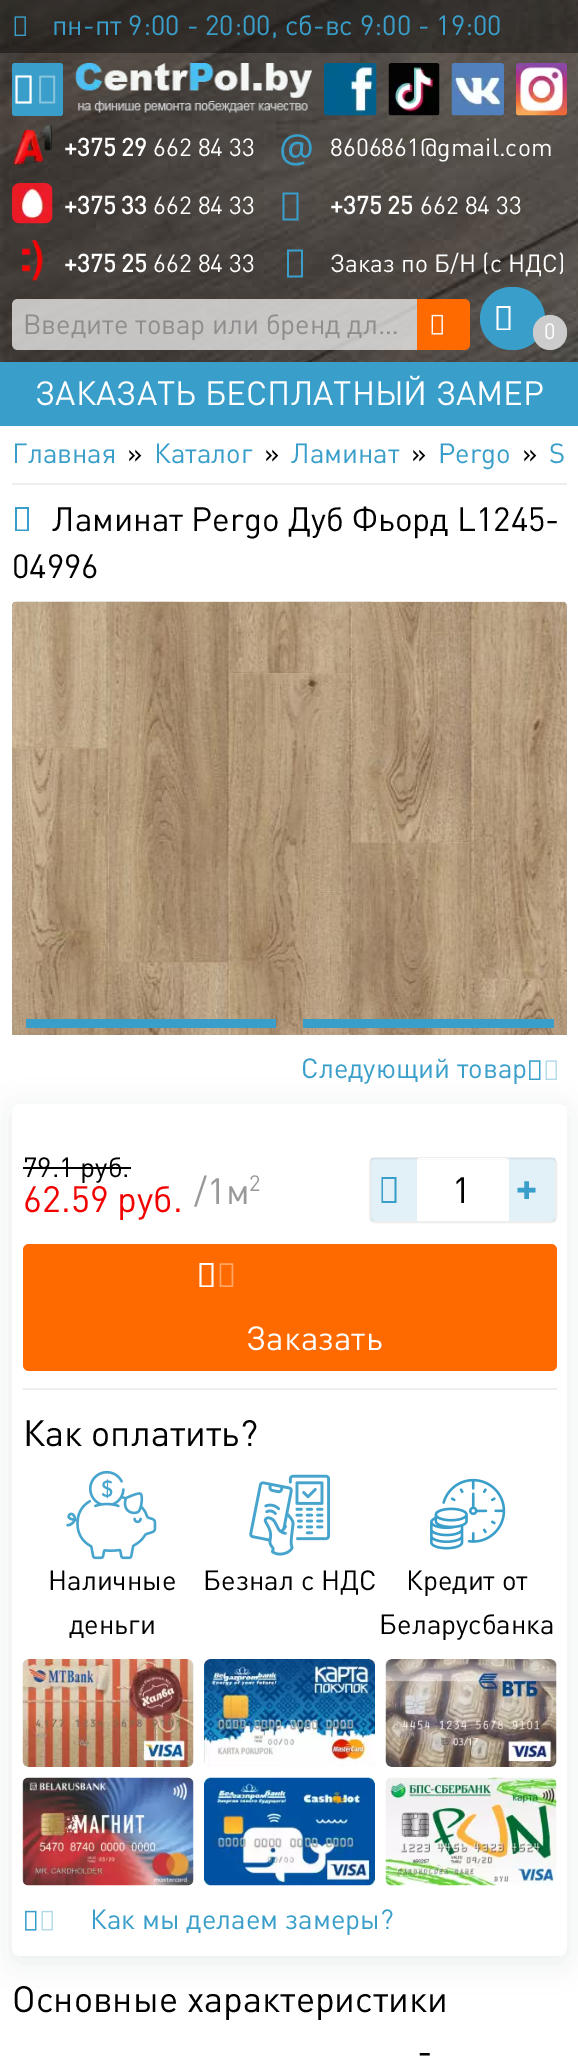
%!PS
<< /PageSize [578 2057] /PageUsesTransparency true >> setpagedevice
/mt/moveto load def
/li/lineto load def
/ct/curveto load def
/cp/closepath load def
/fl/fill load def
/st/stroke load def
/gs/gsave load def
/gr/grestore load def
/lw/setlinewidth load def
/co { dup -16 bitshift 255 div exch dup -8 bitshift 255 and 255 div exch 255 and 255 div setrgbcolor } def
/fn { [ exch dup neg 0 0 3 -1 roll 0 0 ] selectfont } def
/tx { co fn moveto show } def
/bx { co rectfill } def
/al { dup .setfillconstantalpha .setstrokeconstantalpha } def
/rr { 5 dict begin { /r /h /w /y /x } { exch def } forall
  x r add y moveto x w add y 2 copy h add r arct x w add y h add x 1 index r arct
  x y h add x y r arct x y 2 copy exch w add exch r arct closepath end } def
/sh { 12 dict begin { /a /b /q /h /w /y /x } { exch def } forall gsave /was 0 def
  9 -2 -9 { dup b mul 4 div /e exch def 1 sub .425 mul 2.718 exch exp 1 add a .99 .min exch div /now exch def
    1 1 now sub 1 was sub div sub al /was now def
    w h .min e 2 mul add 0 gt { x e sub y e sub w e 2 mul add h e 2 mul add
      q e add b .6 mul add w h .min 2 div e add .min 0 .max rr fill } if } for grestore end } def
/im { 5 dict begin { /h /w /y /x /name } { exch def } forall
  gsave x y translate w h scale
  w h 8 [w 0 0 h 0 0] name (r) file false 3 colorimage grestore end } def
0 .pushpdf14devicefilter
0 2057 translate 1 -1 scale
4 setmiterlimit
0 0 578 2057 16#FFFFFF bx
(media/1.raw) 0 0 578 362 im
0.7 al
0 0 578 53 16#000000 bx
1 al
(media/2.raw) 14 16 12 20 im
0.5 al
0 53 578 309 16#000000 bx
1 al
16#399EC9 co
12 63 51 53 3 rr fl
16#FFFFFF co
15.5 103.5 mt 15.5 75.5 li 31.5 75.5 li 31.5 103.5 li cp 17.5 101.5 mt 29.5 101.5 li 29.5 77.5 li 17.5 77.5 li cp fl
(media/3.raw) 15 75 41 29 im
(media/4.raw) 75 63 237 50 im
(media/5.raw) 324 63 53 53 im
(media/6.raw) 388 63 52 53 im
(media/7.raw) 451 63 53 53 im
(media/8.raw) 516 63 51 53 im
(media/9.raw) 13 125 39 40 im
(media/10.raw) 12 183 41 41 im
16#399EC9 co
282.5 220.5 mt 282.5 192.5 li 298.5 192.5 li 298.5 220.5 li cp 284.5 218.5 mt 296.5 218.5 li 296.5 194.5 li 284.5 194.5 li cp fl
(media/11.raw) 22 240 21 41 im
287 277.5 mt 287 249.5 li 303 249.5 li 303 277.5 li cp 289 275.5 mt 301 275.5 li 301 251.5 li 289 251.5 li cp fl
0.7 al
16#FFFFFF co
18 299 mt 417 299 li 417 350 li 18 350 li 14.5 350 12 347.5 12 344 ct 12 305 li 12 301.5 14.5 299 18 299 ct cp fl
1 al
16#FF6A00 co
417 299 mt 464 299 li 467.5 299 470 301.5 470 305 ct 470 344 li 470 347.5 467.5 350 464 350 ct 417 350 li cp fl
(media/12.raw) 431 314 12 21 im
16#399EC9 co
480 287 65 63 31.5 rr fl
16#FFFFFF co
496.5 330 mt 496.5 306 li 510.5 306 li 510.5 330 li cp 498.5 328.5 mt 508.5 328.5 li 508.5 308 li 498.5 308 li cp fl
16#CCCCCC co
533 315 34 35 17 rr fl
0 362 578 64 16#399EC9 bx
12 483 555 2 16#EEEEEE bx
16#399EC9 co
15 531 mt 15 507 li 29 507 li 29 531 li cp 17 529.5 mt 27 529.5 li 27 509 li 17 509 li cp fl
(media/13.raw) 12 601 555 5 im
(media/14.raw) 12 601 555 434 im
26 1019 250 9 16#399EC9 bx
303 1019 251 9 16#399EC9 bx
gs
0 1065 mt 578 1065 li 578 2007 li 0 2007 li cp 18 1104 mt 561 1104 li 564.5 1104 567 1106.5 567 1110 ct 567 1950 li 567 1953.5 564.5 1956 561 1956 ct 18 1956 li 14.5 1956 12 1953.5 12 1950 ct 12 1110 li 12 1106.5 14.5 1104 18 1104 ct cp eoclip newpath
16#003729 co
12 1110 555 852 6 14.5 .08 sh
gr
(media/15.raw) 529 1060 12 20 im
(media/16.raw) 529 1060 28 20 im
23 1167 108 2 16#000000 bx
16#EEEEEE co
2 lw
370 1158 186 64 5 rr st
0.15 al
371 1158 46 63 16#399EC9 bx
1 al
381.5 1203 mt 381.5 1177 li 396.5 1177 li 396.5 1203 li cp 383 1201 mt 394.5 1201 li 394.5 1179 li 383 1179 li cp fl
419 1158 87 1 16#FFFFFF bx
0.15 al
509 1158 46 63 16#399EC9 bx
1 al
16#FF6A00 co
23 1244 534 127 6 rr fl
16#FFFFFF co
199.5 1287 mt 199.5 1263 li 213.5 1263 li 213.5 1287 li cp 201.5 1285.5 mt 211.5 1285.5 li 211.5 1265 li 201.5 1265 li cp fl
(media/17.raw) 199 1263 35 24 im
23 1388 534 2 16#EEEEEE bx
(media/18.raw) 66 1470 91 90 im
(media/19.raw) 249 1474 82 82 im
(media/20.raw) 430 1478 76 72 im
(media/21.raw) 22 1659 172 108 im
(media/22.raw) 204 1659 171 108 im
(media/23.raw) 385 1659 172 108 im
(media/24.raw) 22 1777 172 109 im
(media/25.raw) 204 1777 171 109 im
(media/26.raw) 385 1777 172 109 im
(media/27.raw) 25 1910 12 21 im
(media/28.raw) 25 1910 28 21 im
(пн-пт 9:00 - 20:00, сб-вс 9:00 - 19:00) 52 35 /DIN-Regular 27.5 16#399EC9 tx
(+375 29) 64 156 /DIN-Bold 24.6 16#FFFFFF tx
(662 84 33) 153 156 /DIN-Regular 24.6 16#FFFFFF tx
(@) 279 162 /NotoSans-Regular 39 16#399EC9 tx
(8606861@gmail.com) 330 156 /DIN-Regular 24.6 16#FFFFFF tx
(+375 33) 64 214 /DIN-Bold 24.6 16#FFFFFF tx
(662 84 33) 153 214 /DIN-Regular 24.6 16#FFFFFF tx
(+375 25) 330 214 /DIN-Bold 24.6 16#FFFFFF tx
(662 84 33) 420 214 /DIN-Regular 24.6 16#FFFFFF tx
(+375 25) 64 272 /DIN-Bold 24.6 16#FFFFFF tx
(662 84 33) 153 272 /DIN-Regular 24.6 16#FFFFFF tx
(Заказ по Б/Н \(с НДС\)) 330 272 /DIN-Regular 24.6 16#FFFFFF tx
(Введите товар или бренд дл…) 23 334 /DIN-Regular 27.5 16#8E8D8D tx
(0) 544 339 /DIN-Regular 22 16#FFFFFF tx
(ЗАКАЗАТЬ БЕСПЛАТНЫЙ ЗАМЕР) 35 405 /DIN-Regular 33.25 16#FFFFFF tx
(Главная) 12 463 /DIN-Regular 27.5 16#399EC9 tx
(») 127 463 /DIN-Regular 27.5 16#000000 tx
(Каталог) 154 463 /DIN-Regular 27.5 16#399EC9 tx
(») 264 463 /DIN-Regular 27.5 16#000000 tx
(Ламинат) 291 463 /DIN-Regular 27.5 16#399EC9 tx
(») 411 463 /DIN-Regular 27.5 16#000000 tx
(Pergo) 438 463 /DIN-Regular 27.5 16#399EC9 tx
(») 522 463 /DIN-Regular 27.5 16#000000 tx
(S) 549 463 /DIN-Regular 27.5 16#399EC9 tx
(Ламинат Pergo Дуб Фьорд L1245-) 52 531 /DIN-Regular 33.25 16#000000 tx
(04996) 12 578 /DIN-Regular 33.25 16#000000 tx
(Следующий товар) 301 1078 /DIN-Regular 27.5 16#399EC9 tx
(79.1 руб.) 23 1177 /DIN-Regular 27.5 16#000000 tx
(/1м) 194 1204 /DIN-Regular 36.25 16#999999 tx
(2) 249 1191 /DIN-Regular 22 16#999999 tx
(62.59 руб.) 23 1212 /DIN-Regular 36.25 16#F10100 tx
(1) 452 1203 /DIN-Regular 36.25 16#000000 tx
(+) 516 1203 /NotoSans-Black 36.25 16#399EC9 tx
(Заказать) 246 1350 /DIN-Regular 33.25 16#FFFFFF tx
(Как оплатить?) 23 1446 /DIN-Regular 36.25 16#000000 tx
(Наличные) 48 1590 /DIN-Regular 27.5 16#000000 tx
(деньги) 69 1634 /DIN-Regular 27.5 16#000000 tx
(Безнал с НДС) 203 1590 /DIN-Regular 27.5 16#000000 tx
(Кредит от) 406 1590 /DIN-Regular 27.5 16#000000 tx
(Беларусбанка) 379 1634 /DIN-Regular 27.5 16#000000 tx
(Как мы делаем замеры?) 90 1929 /DIN-Regular 27.5 16#399EC9 tx
(Основные характеристики) 12 2012 /DIN-Regular 36.25 16#000000 tx
(-) 417 2064 /DIN-Regular 36.25 16#000000 tx
.poppdf14devicefilter showpage
